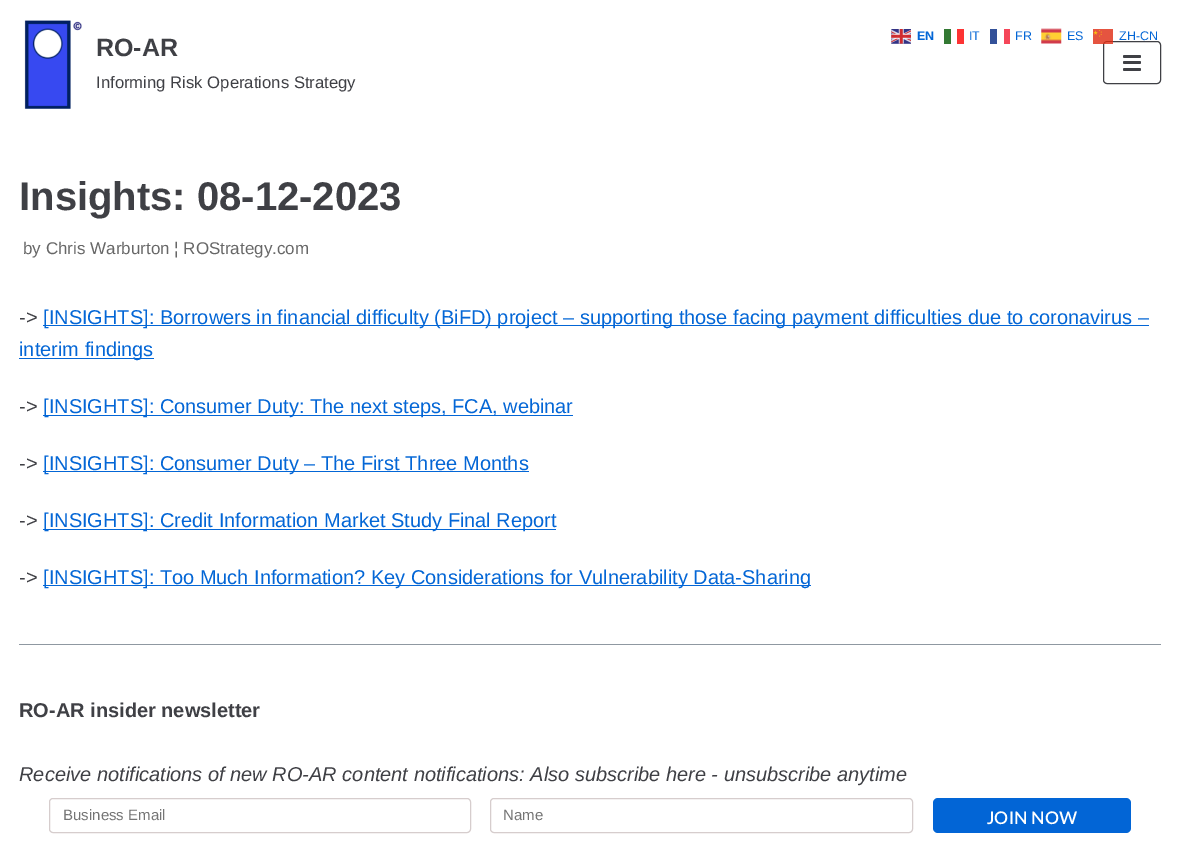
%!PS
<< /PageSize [1180 841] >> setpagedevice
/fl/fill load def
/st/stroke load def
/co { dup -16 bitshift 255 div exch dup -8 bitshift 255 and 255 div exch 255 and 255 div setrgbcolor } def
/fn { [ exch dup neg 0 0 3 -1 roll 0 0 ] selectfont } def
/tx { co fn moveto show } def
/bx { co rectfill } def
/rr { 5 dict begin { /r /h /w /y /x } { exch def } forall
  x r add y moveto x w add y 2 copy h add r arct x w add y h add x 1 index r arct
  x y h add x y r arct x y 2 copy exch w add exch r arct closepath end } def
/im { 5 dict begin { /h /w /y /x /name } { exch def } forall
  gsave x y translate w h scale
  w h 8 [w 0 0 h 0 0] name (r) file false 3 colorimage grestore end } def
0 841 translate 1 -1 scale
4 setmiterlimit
0 0 1180 841 16#FFFFFF bx
(media/1.raw) 891 29 20 15 im
944 29 7 15 16#337933 bx
957 29 7 15 16#FD3333 bx
990 29 7 15 16#335199 bx
1004 29 6 15 16#F54659 bx
(media/2.raw) 1041 28 21 16 im
16#3F4045 co
1103.5 41.5 57 42 3.5 rr st
(media/3.raw) 1093 29 20 15 im
(media/4.raw) 24 20 58 89 im
1123 55 18 3 1.5 rr fl
1123 61 18 3 1.5 rr fl
1123 68 18 3 1.5 rr fl
43 325 1106 1 16#0366D6 bx
19 358 135 1 16#0366D6 bx
43 415 530 1 16#0366D6 bx
43 471 486 1 16#0366D6 bx
43 529 513 1 16#0366D6 bx
43 585 768 1 16#0366D6 bx
19 644 1142 1 16#8F98A1 bx
16#D6CDCD co
49.5 798.5 421 34 3.5 rr st
490.5 798.5 422 34 3.5 rr st
16#0265D6 co
933 798 198 35 5 rr fl
(EN) 917 40 /LiberationSans-Bold 12.5 16#0366D6 tx
(IT) 969 40 /LiberationSans-Regular 12.5 16#0366D6 tx
(FR) 1015 40 /LiberationSans-Regular 12.5 16#0366D6 tx
(ES) 1067 40 /LiberationSans-Regular 12.5 16#0366D6 tx
(ZH-CN) 1119 40 /LiberationSans-Regular 12.5 16#0366D6 tx
(RO-AR) 96 56 /LiberationSans-Bold 25 16#3F4045 tx
(Informing Risk Operations Strategy) 96 88 /LiberationSans-Regular 16.7 16#3F4045 tx
(Insights: 08-12-2023) 19 210 /LiberationSans-Bold 40 16#3F4045 tx
(by Chris Warburton ¦ ROStrategy.com) 23 254 /LiberationSans-Regular 17 16#676767 tx
(->) 19 324 /LiberationSans-Regular 20 16#3F4045 tx
([INSIGHTS]: Borrowers in financial difficulty \(BiFD\) project – supporting those facing payment difficulties due to coronavirus –) 43 324 /LiberationSans-Regular 20 16#0366D6 tx
(interim findings) 19 356 /LiberationSans-Regular 20 16#0366D6 tx
(->) 19 413 /LiberationSans-Regular 20 16#3F4045 tx
([INSIGHTS]: Consumer Duty: The next steps, FCA, webinar) 43 413 /LiberationSans-Regular 20 16#0366D6 tx
(->) 19 470 /LiberationSans-Regular 20 16#3F4045 tx
([INSIGHTS]: Consumer Duty – The First Three Months) 43 470 /LiberationSans-Regular 20 16#0366D6 tx
(->) 19 527 /LiberationSans-Regular 20 16#3F4045 tx
([INSIGHTS]: Credit Information Market Study Final Report) 43 527 /LiberationSans-Regular 20 16#0366D6 tx
(->) 19 584 /LiberationSans-Regular 20 16#3F4045 tx
([INSIGHTS]: Too Much Information? Key Considerations for Vulnerability Data-Sharing) 43 584 /LiberationSans-Regular 20 16#0366D6 tx
(RO-AR insider newsletter) 19 717 /LiberationSans-Bold 20 16#3F4045 tx
(Receive notifications of new RO-AR content notifications: Also subscribe here - unsubscribe anytime) 19 781 /LiberationSans-Italic 20 16#3F4045 tx
(Business Email) 63 820 /LiberationSans-Regular 15 16#757575 tx
(Name) 503 820 /LiberationSans-Regular 15 16#757575 tx
(JOIN NOW) 987 824 /Lato-SemiBold 17.5 16#FFFFFF tx
showpage
